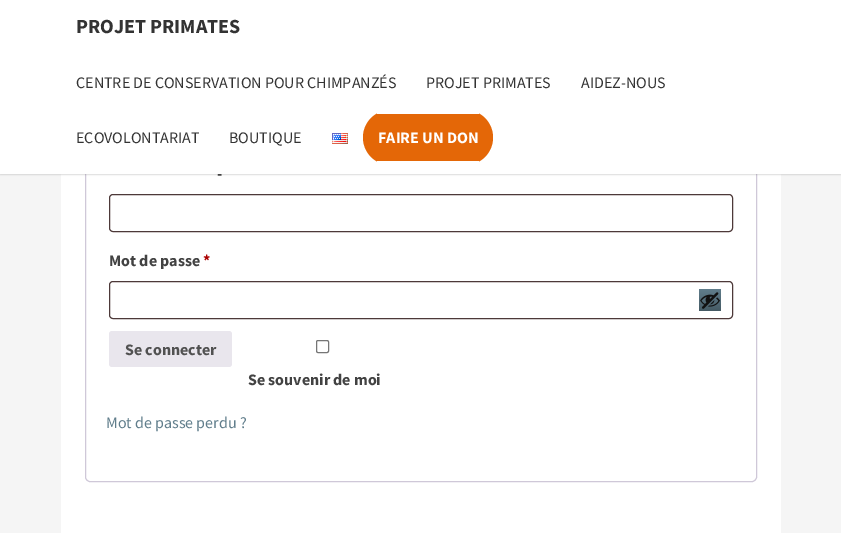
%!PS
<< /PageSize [841 533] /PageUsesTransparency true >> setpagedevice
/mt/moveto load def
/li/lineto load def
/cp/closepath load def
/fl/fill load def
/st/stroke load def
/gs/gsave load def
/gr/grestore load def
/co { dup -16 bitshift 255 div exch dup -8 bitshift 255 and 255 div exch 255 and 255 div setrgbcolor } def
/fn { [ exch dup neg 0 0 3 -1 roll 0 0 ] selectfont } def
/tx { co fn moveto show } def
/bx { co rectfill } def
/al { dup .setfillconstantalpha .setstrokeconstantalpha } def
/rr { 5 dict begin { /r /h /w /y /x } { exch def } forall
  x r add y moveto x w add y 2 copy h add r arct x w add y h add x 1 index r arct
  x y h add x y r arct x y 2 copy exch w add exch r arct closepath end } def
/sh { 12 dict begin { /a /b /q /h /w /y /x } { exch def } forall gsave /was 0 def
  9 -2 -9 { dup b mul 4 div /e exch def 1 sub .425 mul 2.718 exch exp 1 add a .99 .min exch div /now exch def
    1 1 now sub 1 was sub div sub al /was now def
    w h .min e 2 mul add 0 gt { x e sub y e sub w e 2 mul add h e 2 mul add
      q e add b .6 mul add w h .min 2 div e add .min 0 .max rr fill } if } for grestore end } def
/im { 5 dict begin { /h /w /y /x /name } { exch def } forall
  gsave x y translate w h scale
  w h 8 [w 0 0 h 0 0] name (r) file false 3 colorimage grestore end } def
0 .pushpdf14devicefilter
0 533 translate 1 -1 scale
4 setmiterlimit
0 0 841 533 16#F5F5F5 bx
61 174 720 359 16#FFFFFF bx
16#CFC8D8 co
85.5 133.5 671 348 4.5 rr st
16#646464 co
0 1 841 174 0 .5 .2 sh
0 0 841 174 16#FFFFFF bx
(media/1.raw) 332 133 16 11 im
16#E46707 co
363 110 130 55 27.5 rr fl
377 110 102 4 16#FFFFFF bx
377 161 102 4 16#FFFFFF bx
16#4D3939 co
109.5 194.5 623 37 3.5 rr st
109.5 281.5 623 37 3.5 rr st
gs 699 289 mt 721 289 li 721 311 li 699 311 li cp clip newpath
<< /ShadingType 2 /ColorSpace /DeviceRGB /Coords [710 289 710 311] /Extend [true true] /Function << /FunctionType 2 /Domain [0 1] /C0 [.376 .49 .545] /C1 [.271 .353 .392] /N 1 >> >> shfill gr
(media/2.raw) 700 292 20 17 im
16#E9E6ED co
109 331 123 36 3 rr fl
16#767676 co
316.5 340.5 12 12 1.5 rr st
(PROJET PRIMATES) 76 33 /SourceSansPro-Bold 20 16#333333 tx
(CENTRE DE CONSERVATION POUR CHIMPANZÉS) 76 88 /SourceSansPro-Regular 16 16#333333 tx
(PROJET PRIMATES) 426 88 /SourceSansPro-Regular 16 16#333333 tx
(AIDEZ-NOUS) 581 88 /SourceSansPro-Regular 16 16#333333 tx
(ECOVOLONTARIAT) 76 143 /SourceSansPro-Regular 16 16#333333 tx
(BOUTIQUE) 229 143 /SourceSansPro-Regular 16 16#333333 tx
(FAIRE UN DON) 378 143 /SourceSansPro-Bold 16 16#FFFFFF tx
(-) 217 179 /SourceSansPro-Bold 16 16#424242 tx
(Mot de passe) 109 266 /SourceSansPro-Bold 16 16#424242 tx
(*) 203 266 /SourceSansPro-Bold 16 16#AA0000 tx
(Se connecter) 125 355 /SourceSansPro-Bold 16 16#515151 tx
(Se souvenir de moi) 248 385 /SourceSansPro-Bold 16 16#424242 tx
(Mot de passe perdu ?) 106 428 /SourceSansPro-Regular 16 16#607D8B tx
.poppdf14devicefilter showpage
